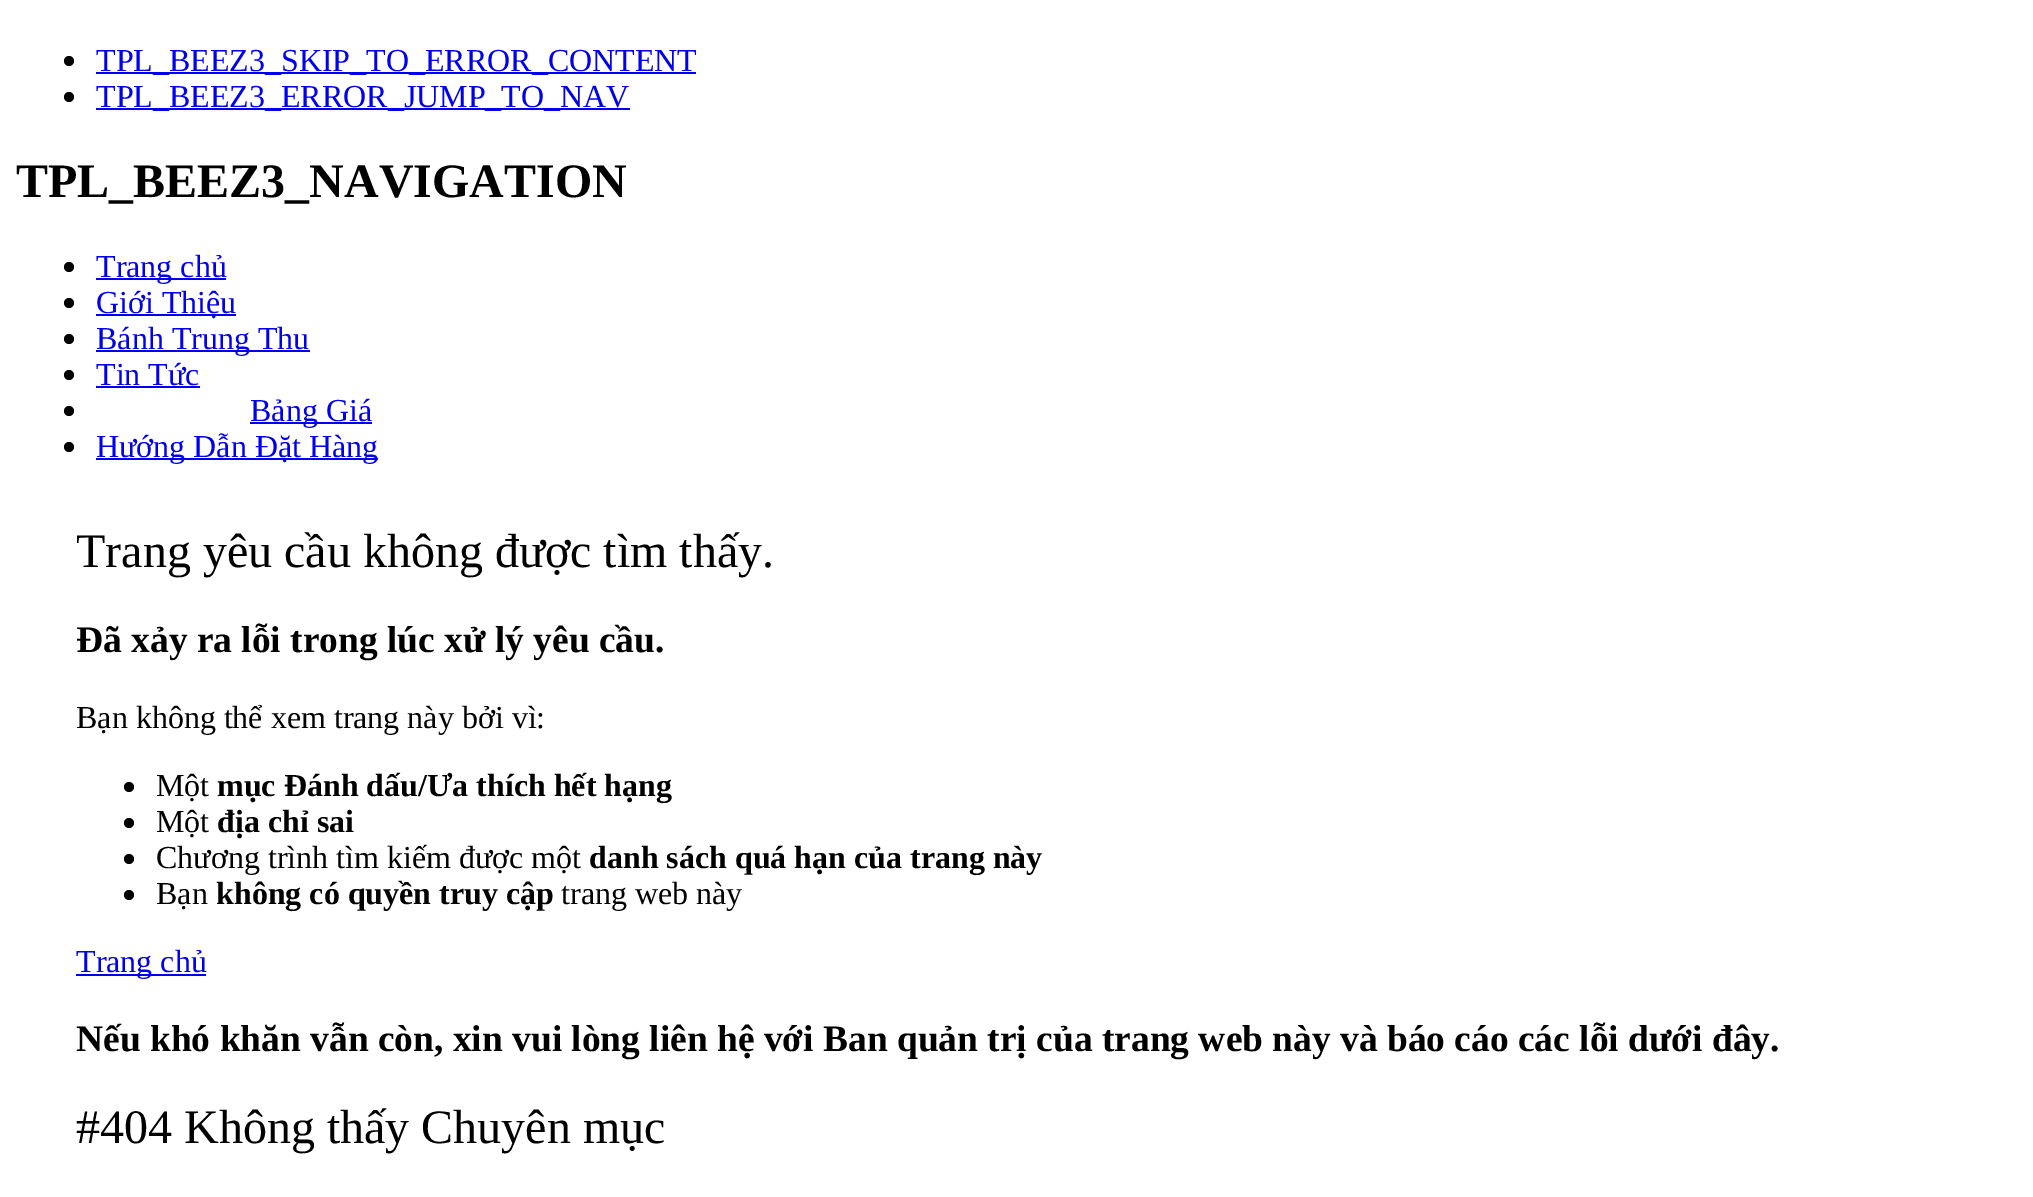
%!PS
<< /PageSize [2033 1197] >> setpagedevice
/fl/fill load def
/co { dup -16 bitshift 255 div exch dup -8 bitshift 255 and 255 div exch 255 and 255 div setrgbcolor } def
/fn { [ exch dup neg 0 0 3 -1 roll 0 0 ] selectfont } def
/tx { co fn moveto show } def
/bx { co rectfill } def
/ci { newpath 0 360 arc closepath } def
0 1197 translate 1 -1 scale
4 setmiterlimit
0 0 2033 1197 16#FFFFFF bx
16#000000 co
69 61 5 ci fl
96 72 600 2 16#0000EE bx
16#000000 co
69 97 5 ci fl
96 108 534 2 16#0000EE bx
16#000000 co
69 267 5 ci fl
96 278 130 2 16#0000EE bx
16#000000 co
69 303 5 ci fl
96 314 140 2 16#0000EE bx
16#000000 co
69 339 5 ci fl
96 350 214 2 16#0000EE bx
16#000000 co
69 375 5 ci fl
96 386 104 2 16#0000EE bx
16#000000 co
69 411 5 ci fl
250 422 122 2 16#0000EE bx
16#000000 co
69 447 5 ci fl
96 458 282 2 16#0000EE bx
16#000000 co
129 787 5 ci fl
129 823 5 ci fl
129 859 5 ci fl
129 895 5 ci fl
76 974 130 2 16#0000EE bx
(TPL_BEEZ3_SKIP_TO_ERROR_CONTENT) 96 71 /LiberationSerif-Regular 32 16#0000EE tx
(TPL_BEEZ3_ERROR_JUMP_TO_NAV) 96 107 /LiberationSerif-Regular 32 16#0000EE tx
(TPL_BEEZ3_NAVIGATION) 16 197 /LiberationSerif-Bold 48 16#000000 tx
(Trang chủ) 96 277 /LiberationSerif-Regular 32 16#0000EE tx
(Giới Thiệu) 96 313 /LiberationSerif-Regular 32 16#0000EE tx
(Bánh Trung Thu) 96 349 /LiberationSerif-Regular 32 16#0000EE tx
(Tin Tức) 96 385 /LiberationSerif-Regular 32 16#0000EE tx
(Bảng Giá) 250 421 /LiberationSerif-Regular 32 16#0000EE tx
(Hướng Dẫn Đặt Hàng) 96 457 /LiberationSerif-Regular 32 16#0000EE tx
(Trang yêu cầu không được tìm thấy.) 76 567 /LiberationSerif-Regular 48 16#000000 tx
(Đã xảy ra lỗi trong lúc xử lý yêu cầu.) 76 652 /LiberationSerif-Bold 37.45 16#000000 tx
(Bạn không thể xem trang này bởi vì:) 76 728 /LiberationSerif-Regular 32 16#000000 tx
(Một) 156 796 /LiberationSerif-Regular 32 16#000000 tx
(mục Đánh dấu/Ưa thích hết hạng) 217 796 /LiberationSerif-Bold 32 16#000000 tx
(Một) 156 832 /LiberationSerif-Regular 32 16#000000 tx
(địa chỉ sai) 217 832 /LiberationSerif-Bold 32 16#000000 tx
(Chương trình tìm kiếm được một) 156 868 /LiberationSerif-Regular 32 16#000000 tx
(danh sách quá hạn của trang này) 589 868 /LiberationSerif-Bold 32 16#000000 tx
(Bạn) 156 904 /LiberationSerif-Regular 32 16#000000 tx
(không có quyền truy cập) 216 904 /LiberationSerif-Bold 32 16#000000 tx
(trang web này) 561 904 /LiberationSerif-Regular 32 16#000000 tx
(Trang chủ) 76 972 /LiberationSerif-Regular 32 16#0000EE tx
(Nếu khó khăn vẫn còn, xin vui lòng liên hệ với Ban quản trị của trang web này và báo cáo các lỗi dưới đây.) 76 1051 /LiberationSerif-Bold 37.45 16#000000 tx
(#404 Không thấy Chuyên mục) 76 1143 /LiberationSerif-Regular 48 16#000000 tx
showpage
